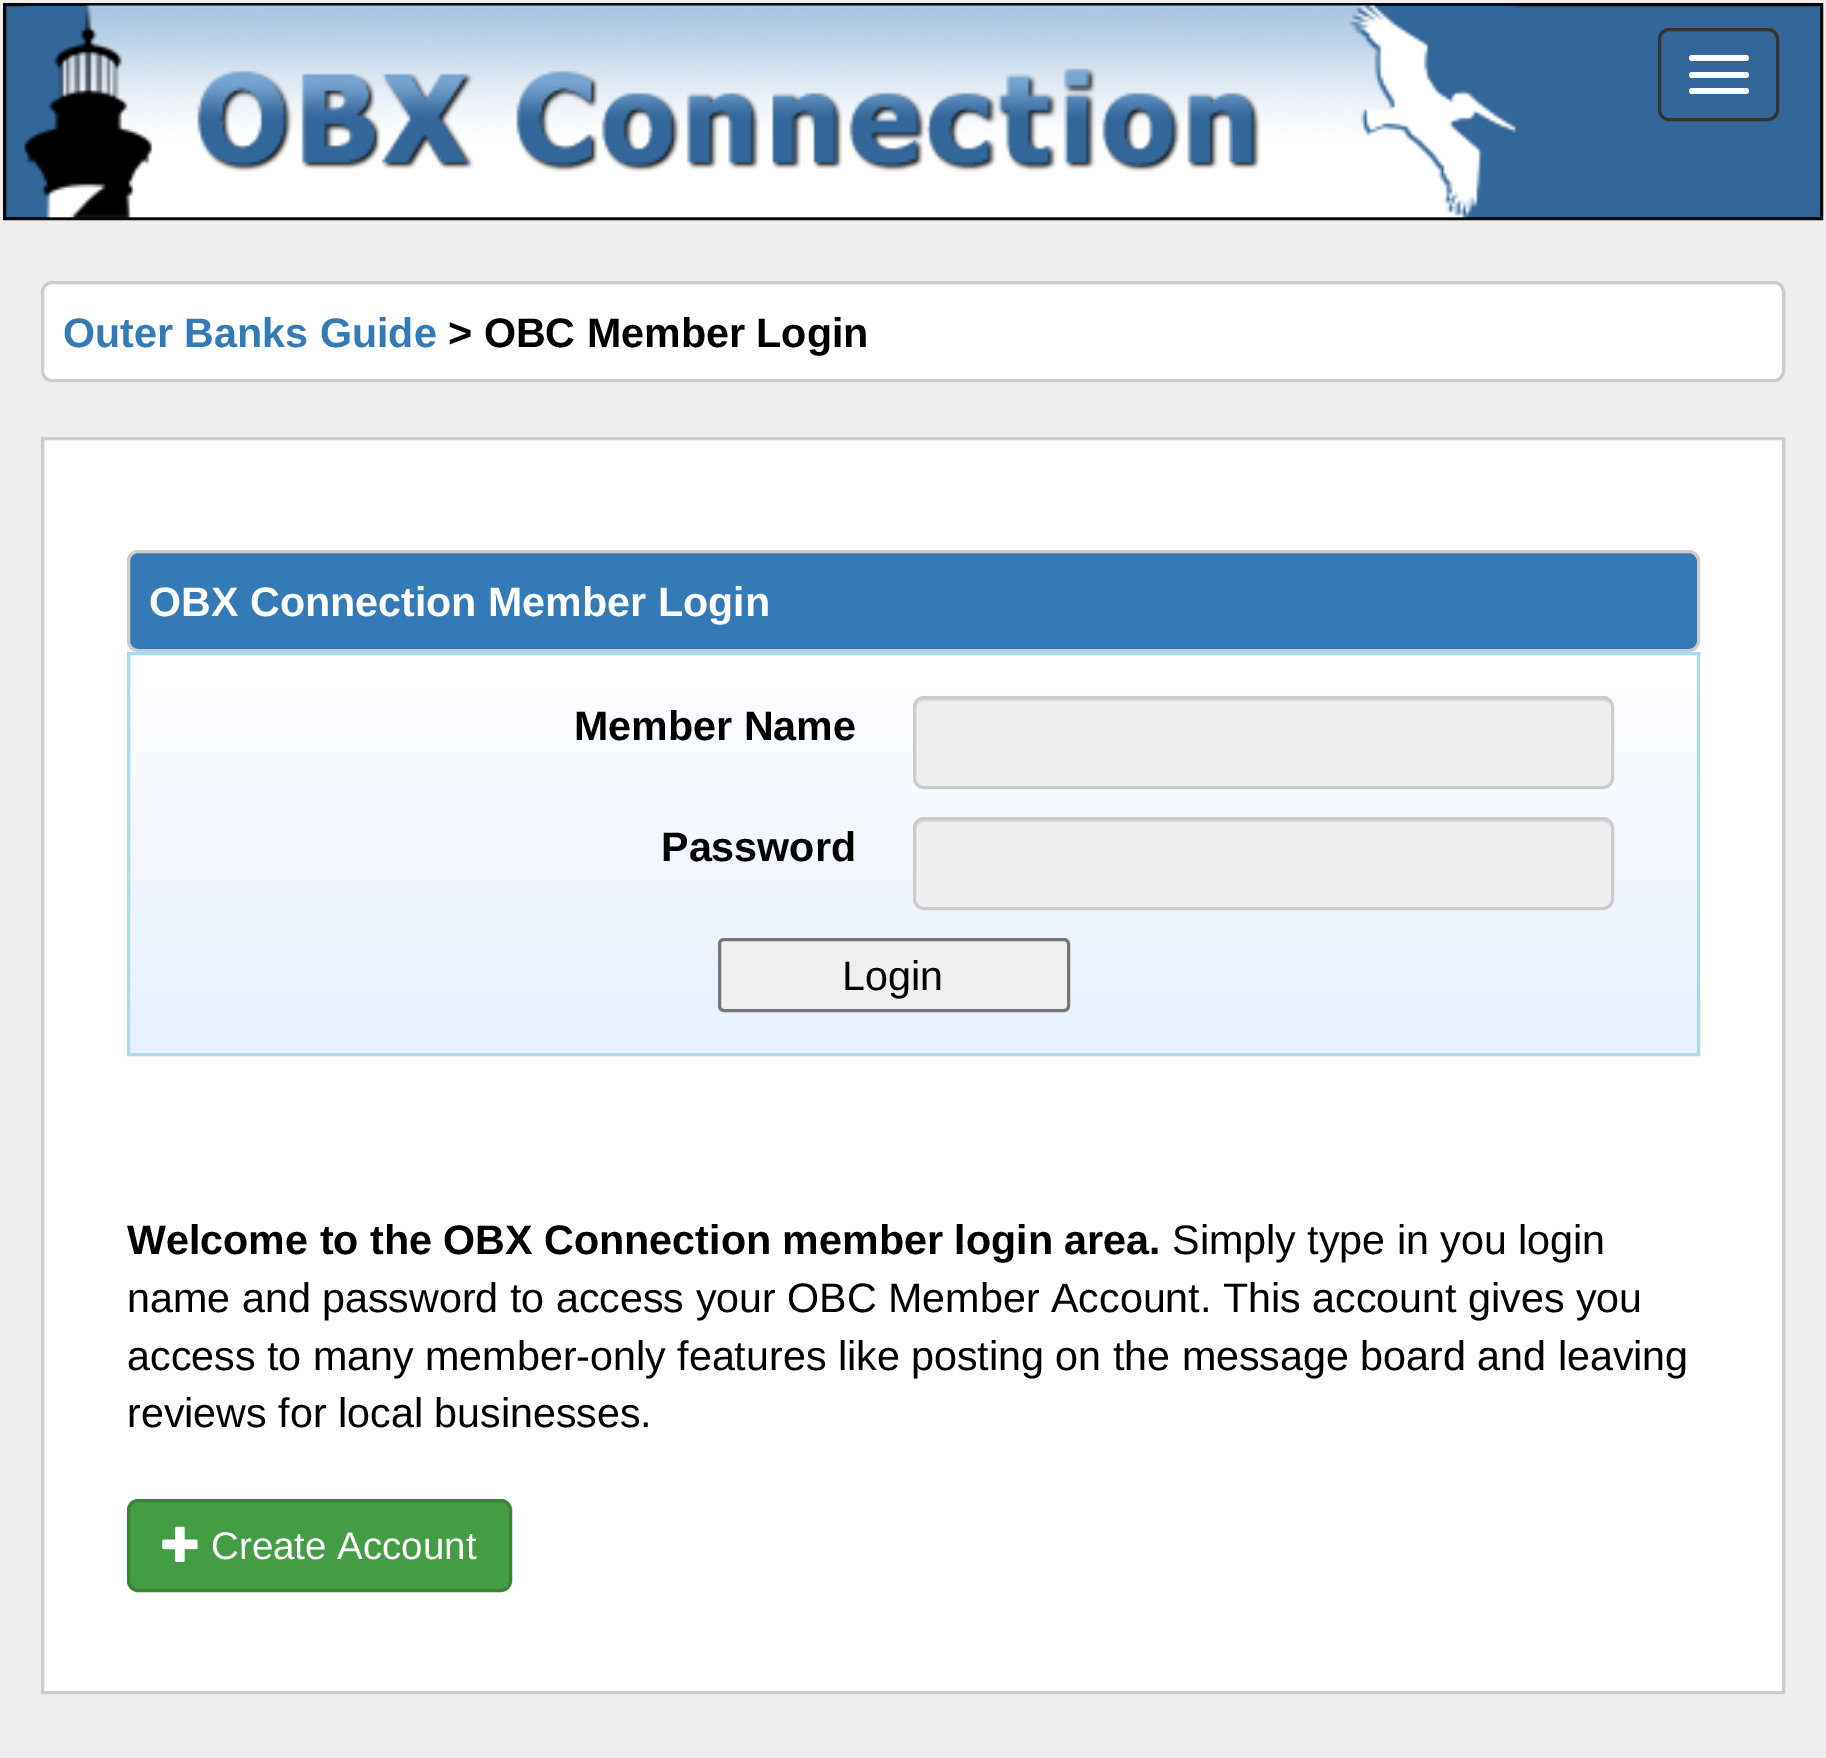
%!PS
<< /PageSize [1826 1758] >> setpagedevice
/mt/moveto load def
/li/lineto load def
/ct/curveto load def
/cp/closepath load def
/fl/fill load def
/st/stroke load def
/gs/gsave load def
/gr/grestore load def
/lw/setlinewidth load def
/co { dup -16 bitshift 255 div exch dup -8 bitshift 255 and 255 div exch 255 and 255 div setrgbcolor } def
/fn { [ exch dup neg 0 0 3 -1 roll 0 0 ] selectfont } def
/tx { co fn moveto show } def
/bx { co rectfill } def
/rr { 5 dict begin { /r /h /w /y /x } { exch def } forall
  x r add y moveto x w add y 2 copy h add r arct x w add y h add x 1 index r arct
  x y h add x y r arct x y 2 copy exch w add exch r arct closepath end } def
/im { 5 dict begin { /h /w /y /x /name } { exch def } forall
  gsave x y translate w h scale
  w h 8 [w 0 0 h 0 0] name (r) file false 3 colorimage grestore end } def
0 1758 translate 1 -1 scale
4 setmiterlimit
0 0 1826 1758 16#EEEEEE bx
16#336699 co
4.5 4.5 mt 1821.5 4.5 li 1821.5 218.5 li 4.5 218.5 li cp gs fl gr
16#080808 co
3 lw
st
(media/1.raw) 24 5 1493 213 im
16#333333 co
1659.5 29.5 118 90 9.5 rr st
16#FFFFFF co
1689 55 60 6 3 rr fl
1689 72 60 6 3 rr fl
1689 88 60 6 3 rr fl
42.5 282.5 1741 98 9.5 rr gs fl gr
16#CCCCCC co
st
16#FFFFFF co
42.5 438.5 mt 1783.5 438.5 li 1783.5 1692.5 li 42.5 1692.5 li cp gs fl gr
16#CCCCCC co
st
16#337AB7 co
128.5 551.5 1570 99 9.5 rr gs fl gr
16#CCCCCC co
st
gs 130 695 mt 1697 695 li 1697 1053 li 130 1053 li cp clip newpath
<< /ShadingType 2 /ColorSpace /DeviceRGB /Coords [913 1053 913 655] /Extend [true true] /Function << /FunctionType 2 /Domain [0 1] /C0 [.902 .941 1] /C1 [1 1 1] /N 1 >> >> shfill gr
16#ADDAE6 co
128.5 653.5 1570 401 rectstroke
16#EEEEEE co
913 696 701 93 11 rr fl
16#DCDCDC co
924 701 mt 1603 701 li 1608 701 1612 705 1612 710 ct 1612 705 1610 699 1604 699 ct 924 699 li 918 699 916 705 916 710 ct 916 705 919 701 924 701 ct cp fl
16#CCCCCC co
914.5 697.5 698 90 9.5 rr st
16#EEEEEE co
913 817 701 93 11 rr fl
16#DCDCDC co
924 822 mt 1603 822 li 1608 822 1612 826 1612 830 ct 1612 828 li 1612 824 1608 820 1604 820 ct 924 820 li 920 820 916 824 916 828 ct 916 830 li 916 826 919 822 924 822 ct cp fl
16#CCCCCC co
914.5 818.5 698 90 9.5 rr st
16#EFEFEF co
719.5 939.5 349 71 4.5 rr gs fl gr
16#767676 co
st
16#449D44 co
128.5 1500.5 382 90 9.5 rr gs fl gr
16#398439 co
st
(media/2.raw) 162 1526 36 36 im
(Outer Banks Guide) 63 347 /LiberationSans-Bold 41.25 16#337AB7 tx
(> OBC Member Login) 448 347 /LiberationSans-Bold 41.25 16#000000 tx
(OBX Connection Member Login) 149 616 /LiberationSans-Bold 41.25 16#FFFFFF tx
(Member Name) 574 740 /LiberationSans-Bold 41.25 16#000000 tx
(Password) 661 861 /LiberationSans-Bold 41.25 16#000000 tx
(Login) 842 990 /LiberationSans-Regular 41.25 16#000000 tx
(Welcome to the OBX Connection member login area.) 127 1254 /LiberationSans-Bold 41.25 16#000000 tx
(Simply type in you login) 1172 1254 /LiberationSans-Regular 41.25 16#000000 tx
(name and password to access your OBC Member Account. This account gives you) 127 1312 /LiberationSans-Regular 41.25 16#000000 tx
(access to many member-only features like posting on the message board and leaving) 127 1370 /LiberationSans-Regular 41.25 16#000000 tx
(reviews for local businesses.) 127 1427 /LiberationSans-Regular 41.25 16#000000 tx
(Create Account) 211 1559 /LiberationSans-Regular 38.5 16#FFFFFF tx
showpage
